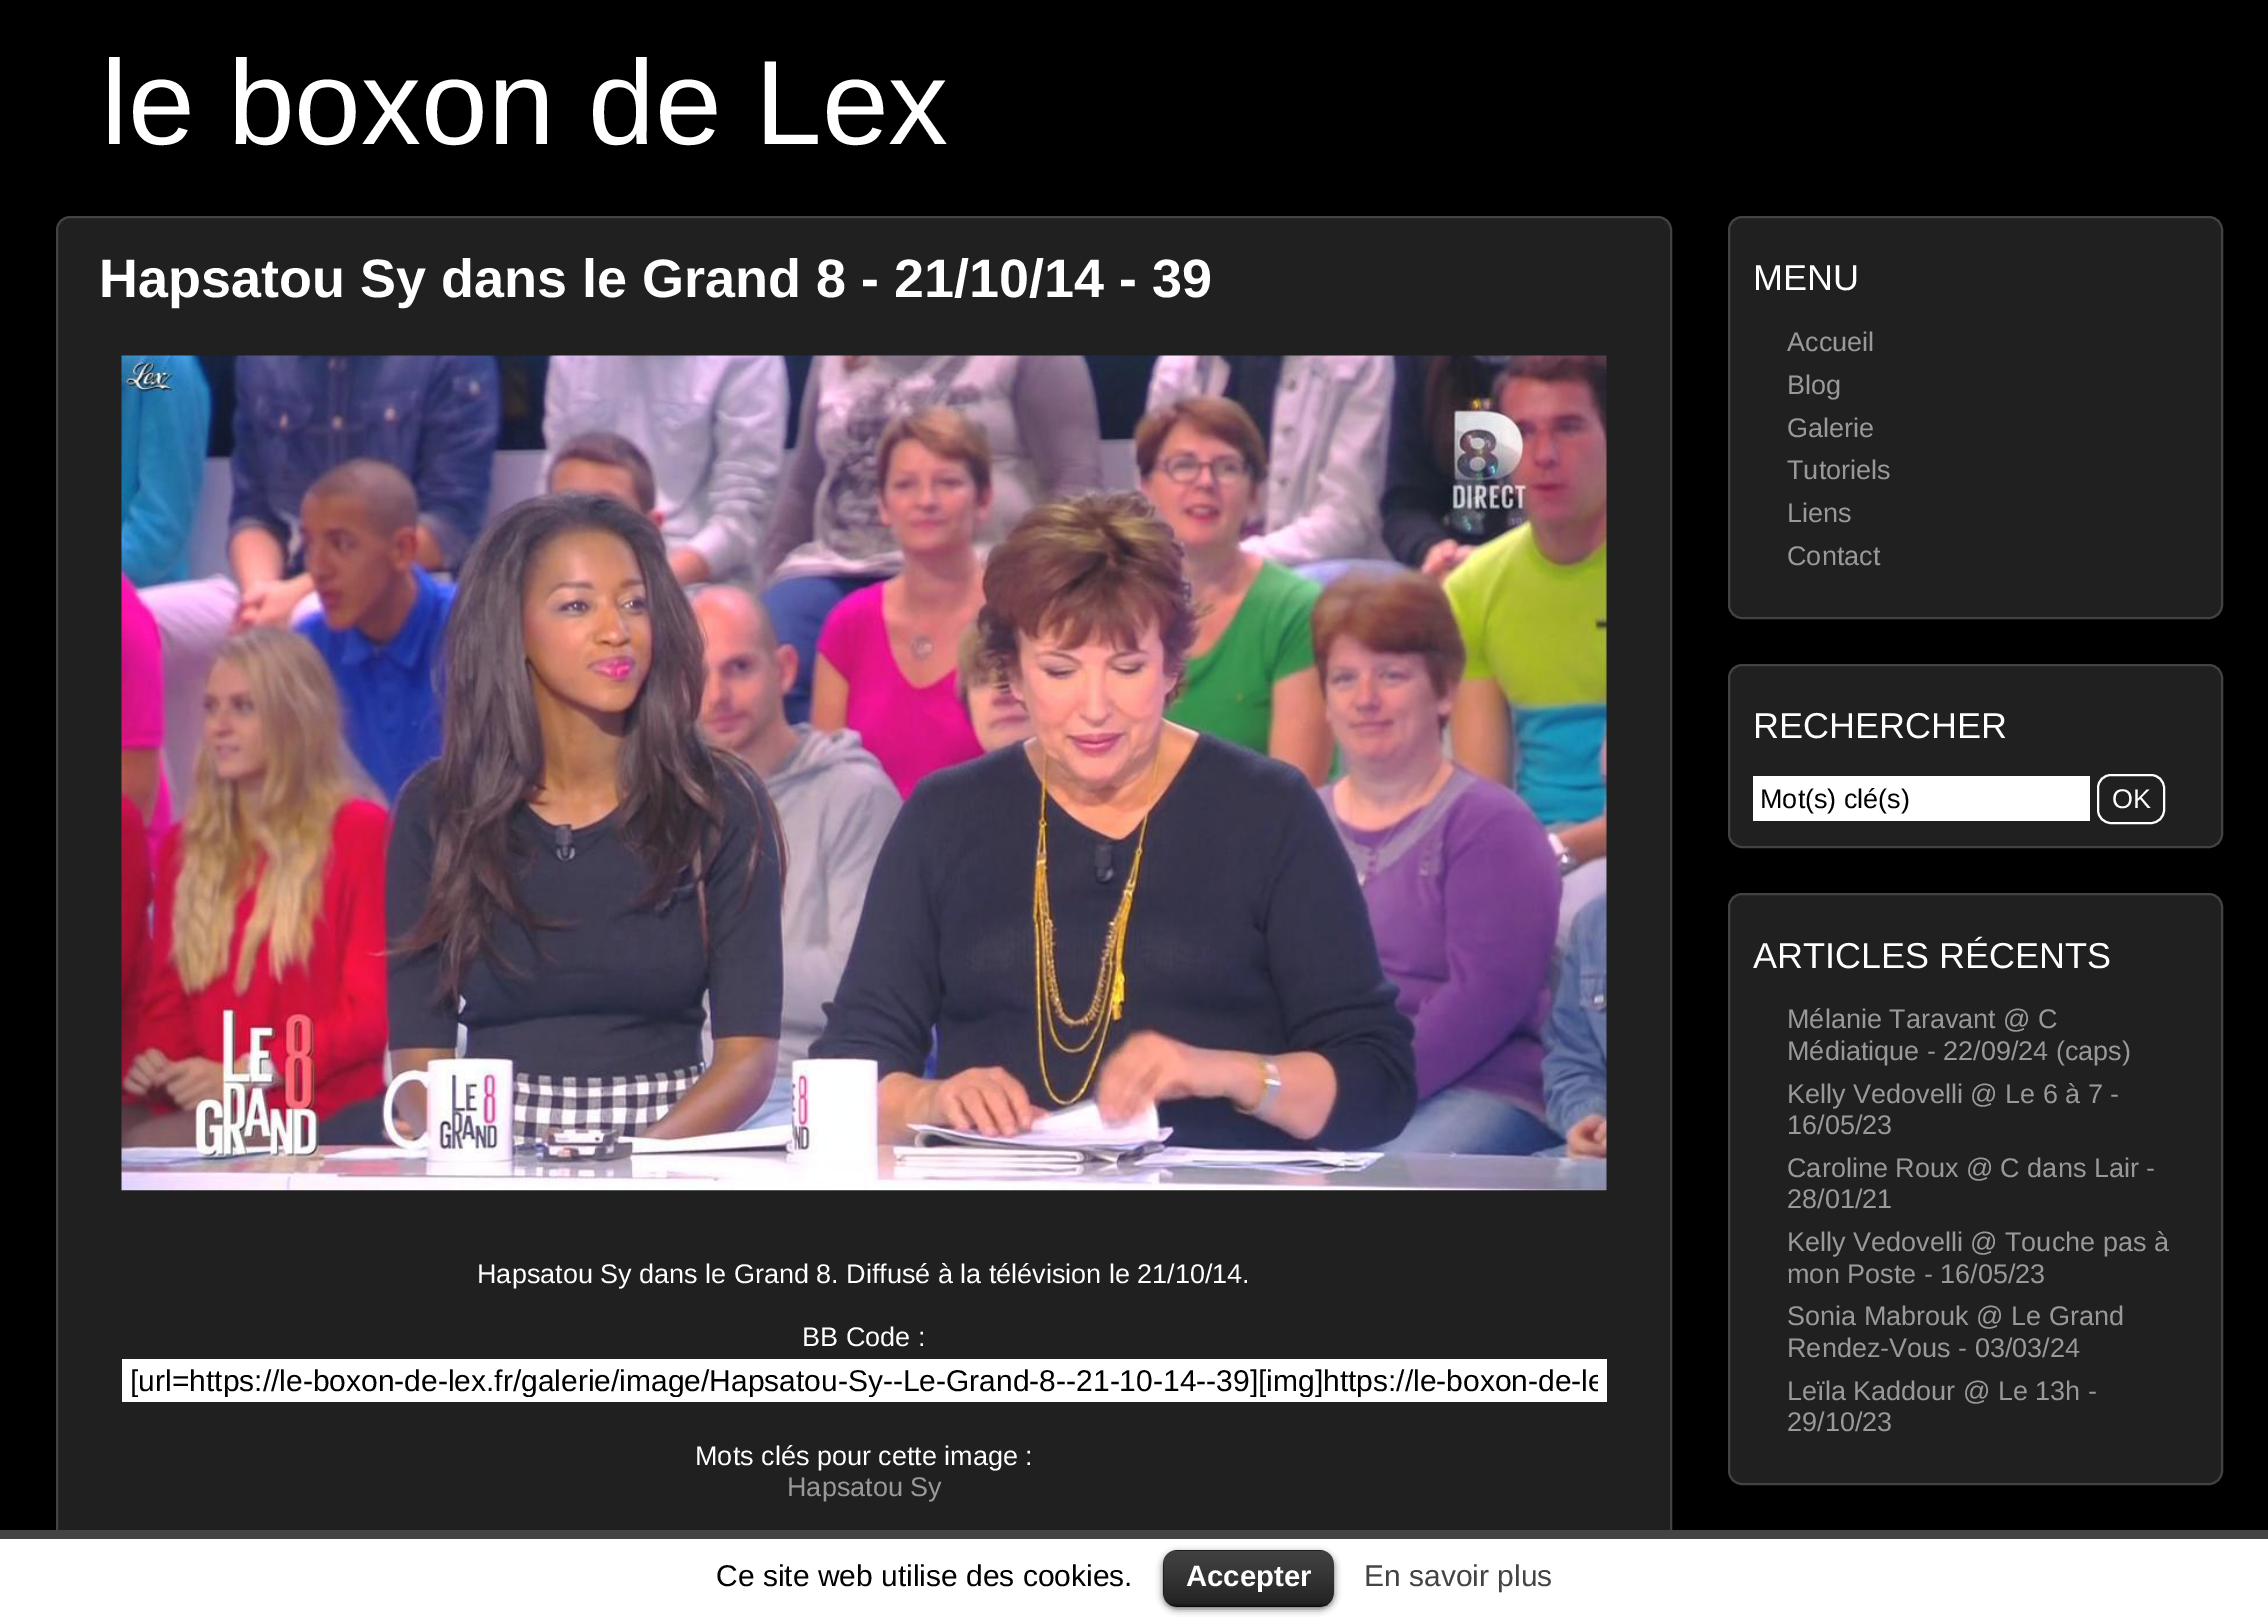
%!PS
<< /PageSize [2268 1617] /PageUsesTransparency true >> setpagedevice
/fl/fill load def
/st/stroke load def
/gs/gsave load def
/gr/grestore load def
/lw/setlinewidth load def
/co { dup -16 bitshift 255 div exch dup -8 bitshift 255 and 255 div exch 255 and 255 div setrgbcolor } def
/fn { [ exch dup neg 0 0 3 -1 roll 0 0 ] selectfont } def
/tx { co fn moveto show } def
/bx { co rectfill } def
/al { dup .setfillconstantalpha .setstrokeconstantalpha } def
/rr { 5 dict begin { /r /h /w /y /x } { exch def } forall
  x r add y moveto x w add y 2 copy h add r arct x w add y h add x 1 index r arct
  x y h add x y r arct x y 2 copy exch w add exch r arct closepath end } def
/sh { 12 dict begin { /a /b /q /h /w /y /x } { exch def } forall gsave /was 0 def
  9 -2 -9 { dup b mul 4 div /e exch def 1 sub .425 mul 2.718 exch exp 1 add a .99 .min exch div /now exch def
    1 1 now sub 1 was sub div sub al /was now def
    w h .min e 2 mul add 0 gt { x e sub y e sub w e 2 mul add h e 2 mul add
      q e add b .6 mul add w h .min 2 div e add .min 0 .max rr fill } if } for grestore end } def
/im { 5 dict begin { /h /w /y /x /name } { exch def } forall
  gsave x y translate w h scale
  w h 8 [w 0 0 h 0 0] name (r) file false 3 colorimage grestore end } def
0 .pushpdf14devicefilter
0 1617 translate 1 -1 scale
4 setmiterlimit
0 0 2268 1617 16#000000 bx
16#202020 co
57 217 1614 1373 13 rr gs fl gr
16#424242 co
2 lw
st
(media/1.raw) 121 355 1486 836 im
122 1359 1485 43 16#FFFFFF bx
16#202020 co
1729 217 493 401 13 rr gs fl gr
16#424242 co
st
16#202020 co
1729 665 493 182 13 rr gs fl gr
16#424242 co
st
1753 776 337 45 16#FFFFFF bx
2098 775 66 48 13 rr st
16#202020 co
1729 894 493 590 13 rr gs fl gr
16#424242 co
st
0 1539 2268 78 16#FFFFFF bx
0 1530 2268 9 16#444444 bx
16#000000 co
1163 1553 171 56 14 3.5 .6 sh
1163 1550 171 57 14 rr fl
(media/2.raw) 1163 1550 171 57 im
0.25 al
1170 1604 158 2 16#000000 bx
1 al
(le boxon de Lex) 101 144 /LiberationSans-Regular 120 16#FFFFFF tx
(Hapsatou Sy dans le Grand 8 - 21/10/14 - 39) 99 297 /LiberationSans-Bold 54 16#FFFFFF tx
(Hapsatou Sy dans le Grand 8. Diffusé à la télévision le 21/10/14.) 477 1283 /LiberationSans-Regular 27 16#FFFFFF tx
(BB Code :) 802 1346 /LiberationSans-Regular 27 16#FFFFFF tx
gs
131 1364 1467 33 rectclip
([url=https://le-boxon-de-lex.fr/galerie/image/Hapsatou-Sy--Le-Grand-8--21-10-14--39][img]https://le-boxon-de-le) 130 1391 /LiberationSans-Regular 30 16#000000 tx
gr
(Mots clés pour cette image :) 695 1465 /LiberationSans-Regular 27 16#FFFFFF tx
(Hapsatou Sy) 787 1496 /LiberationSans-Regular 27 16#999999 tx
(MENU) 1753 290 /LiberationSans-Regular 36 16#FFFFFF tx
(Accueil) 1787 351 /LiberationSans-Regular 27 16#999999 tx
(Blog) 1787 394 /LiberationSans-Regular 27 16#999999 tx
(Galerie) 1787 437 /LiberationSans-Regular 27 16#999999 tx
(Tutoriels) 1787 479 /LiberationSans-Regular 27 16#999999 tx
(Liens) 1787 522 /LiberationSans-Regular 27 16#999999 tx
(Contact) 1787 565 /LiberationSans-Regular 27 16#999999 tx
(RECHERCHER) 1753 738 /LiberationSans-Regular 36 16#FFFFFF tx
(Mot\(s\) clé\(s\)) 1760 808 /LiberationSans-Regular 27 16#000000 tx
(OK) 2112 808 /LiberationSans-Regular 27 16#FFFFFF tx
(ARTICLES RÉCENTS) 1753 968 /LiberationSans-Regular 36 16#FFFFFF tx
(Mélanie Taravant @ C) 1787 1028 /LiberationSans-Regular 27 16#999999 tx
(Médiatique - 22/09/24 \(caps\)) 1787 1060 /LiberationSans-Regular 27 16#999999 tx
(Kelly Vedovelli @ Le 6 à 7 -) 1787 1103 /LiberationSans-Regular 27 16#999999 tx
(16/05/23) 1787 1134 /LiberationSans-Regular 27 16#999999 tx
(Caroline Roux @ C dans Lair -) 1787 1177 /LiberationSans-Regular 27 16#999999 tx
(28/01/21) 1787 1208 /LiberationSans-Regular 27 16#999999 tx
(Kelly Vedovelli @ Touche pas à) 1787 1251 /LiberationSans-Regular 27 16#999999 tx
(mon Poste - 16/05/23) 1787 1283 /LiberationSans-Regular 27 16#999999 tx
(Sonia Mabrouk @ Le Grand) 1787 1325 /LiberationSans-Regular 27 16#999999 tx
(Rendez-Vous - 03/03/24) 1787 1357 /LiberationSans-Regular 27 16#999999 tx
(Leïla Kaddour @ Le 13h -) 1787 1400 /LiberationSans-Regular 27 16#999999 tx
(29/10/23) 1787 1431 /LiberationSans-Regular 27 16#999999 tx
(Ce site web utilise des cookies.) 716 1586 /LiberationSans-Regular 30 16#000000 tx
(Accepter) 1186 1586 /LiberationSans-Bold 29.25 16#FFFFFF tx
(En savoir plus) 1364 1586 /LiberationSans-Regular 30 16#444444 tx
.poppdf14devicefilter showpage
